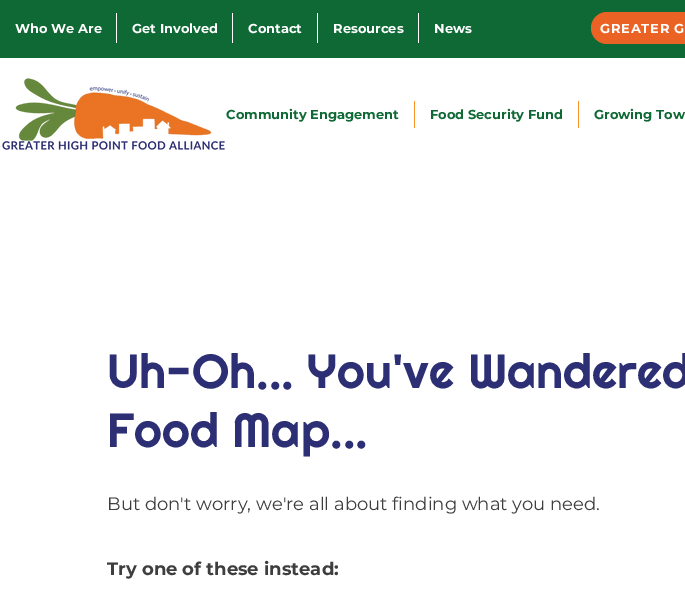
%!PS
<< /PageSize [685 594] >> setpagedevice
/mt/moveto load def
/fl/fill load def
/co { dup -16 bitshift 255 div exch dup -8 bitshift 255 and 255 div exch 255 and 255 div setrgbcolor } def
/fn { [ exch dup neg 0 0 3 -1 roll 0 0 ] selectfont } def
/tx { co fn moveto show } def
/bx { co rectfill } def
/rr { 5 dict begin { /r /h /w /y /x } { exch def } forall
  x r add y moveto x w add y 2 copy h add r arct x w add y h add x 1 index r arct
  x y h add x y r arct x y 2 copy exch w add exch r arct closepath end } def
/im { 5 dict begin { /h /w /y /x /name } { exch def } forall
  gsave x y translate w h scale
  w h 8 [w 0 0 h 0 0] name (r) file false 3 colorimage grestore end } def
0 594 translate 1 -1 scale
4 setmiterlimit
0 0 685 594 16#FFFFFF bx
0 0 685 58 16#0E6934 bx
116 13 1 30 16#FFFFFF bx
232 13 1 30 16#FFFFFF bx
317 13 1 30 16#FFFFFF bx
418 13 1 30 16#FFFFFF bx
16#EA6324 co
591 12 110 32 16 rr fl
(media/1.raw) 2 78 223 72 im
414 101 1 27 16#F79423 bx
578 101 1 27 16#F79423 bx
(Who We Are) 15 33 /Montserrat-Bold 13 16#FFFFFF tx
(Get Involved) 132 33 /Montserrat-Bold 13 16#FFFFFF tx
(Contact) 248 33 /Montserrat-Bold 13 16#FFFFFF tx
(Resources) 333 33 /Montserrat-Bold 13 16#FFFFFF tx
(News) 434 33 /Montserrat-Bold 13 16#FFFFFF tx
600 33 mt .75 0 (GREATER G) ashow
(Community Engagement) 226 119 /Montserrat-Bold 13 16#0E6934 tx
(Food Security Fund) 430 119 /Montserrat-Bold 13 16#0E6934 tx
(Growing Tow) 594 119 /Montserrat-Bold 13 16#0E6934 tx
(Uh-Oh... You've Wandered) 107 388 /Righteous-Regular 48 16#2C2F73 tx
(Food Map...) 107 447 /Righteous-Regular 48 16#2C2F73 tx
(But don't worry, we're all about finding what you need.) 107 510 /Montserrat-Regular 18 16#3E3E3E tx
(Try one of these instead:) 107 575 /Montserrat-Bold 18 16#3E3E3E tx
showpage
